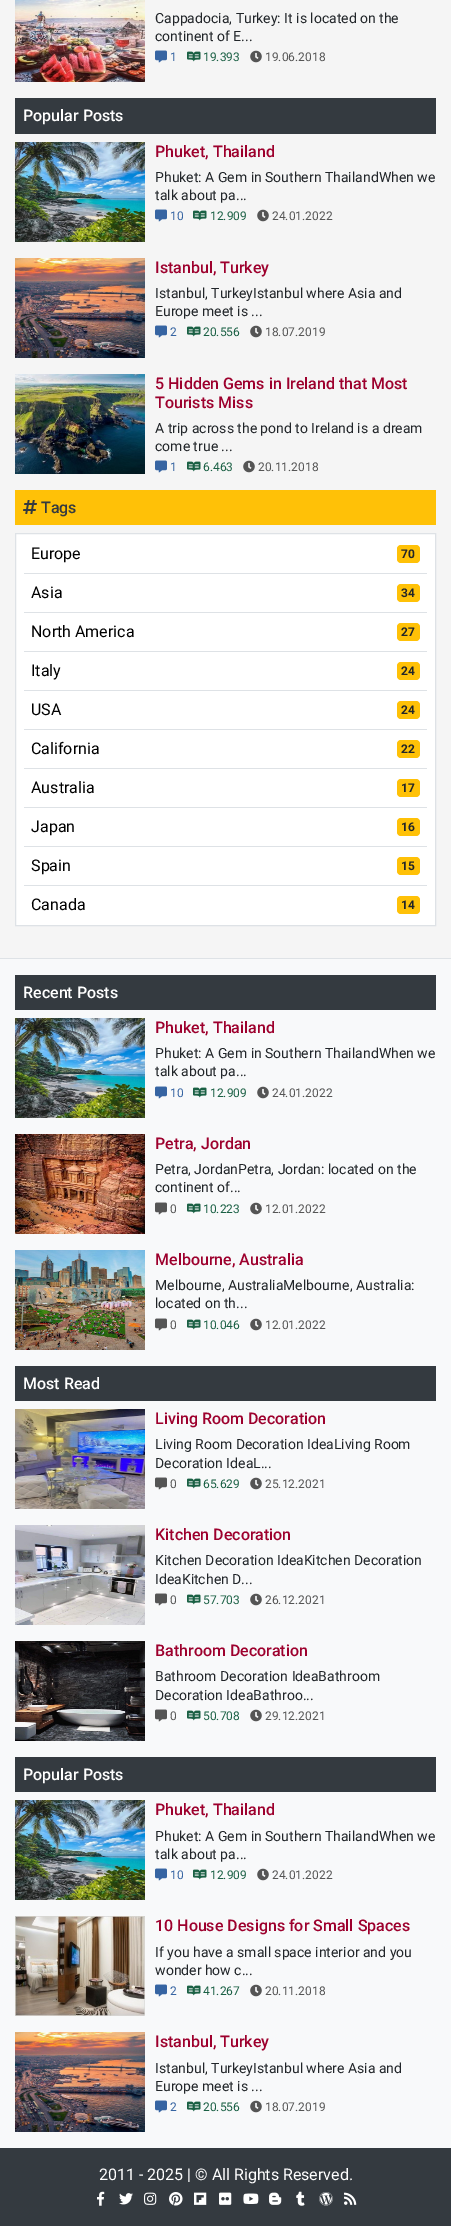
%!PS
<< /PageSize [451 2226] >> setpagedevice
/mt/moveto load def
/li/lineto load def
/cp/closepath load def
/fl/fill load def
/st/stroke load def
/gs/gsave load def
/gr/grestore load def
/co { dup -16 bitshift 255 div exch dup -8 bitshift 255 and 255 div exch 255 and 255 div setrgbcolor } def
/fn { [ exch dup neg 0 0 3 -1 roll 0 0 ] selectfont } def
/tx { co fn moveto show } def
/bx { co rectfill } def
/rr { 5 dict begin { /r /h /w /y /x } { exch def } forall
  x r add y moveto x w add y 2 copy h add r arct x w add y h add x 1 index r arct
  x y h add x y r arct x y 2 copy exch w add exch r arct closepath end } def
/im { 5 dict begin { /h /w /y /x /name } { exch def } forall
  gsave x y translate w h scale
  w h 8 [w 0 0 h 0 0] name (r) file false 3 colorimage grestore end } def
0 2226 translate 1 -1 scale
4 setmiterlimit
0 0 451 2226 16#F5F5F5 bx
(media/1.raw) 15 0 130 82 im
(media/2.raw) 155 50 12 13 im
(media/3.raw) 187 51 14 11 im
(media/4.raw) 250 50 12 13 im
15 98 421 36 16#343A40 bx
(media/5.raw) 15 142 130 100 im
(media/2.raw) 155 209 12 13 im
(media/3.raw) 193 210 14 11 im
(media/4.raw) 257 209 12 13 im
(media/6.raw) 15 258 130 100 im
(media/2.raw) 155 325 12 13 im
(media/3.raw) 187 326 14 11 im
(media/4.raw) 250 325 12 13 im
(media/7.raw) 15 374 130 100 im
(media/2.raw) 155 460 12 13 im
(media/3.raw) 187 461 14 11 im
(media/4.raw) 243 460 12 13 im
15 490 421 35 16#FFC107 bx
(media/8.raw) 23 500 14 14 im
16#FFFFFF co
15.5 533.5 mt 435.5 533.5 li 435.5 925.5 li 15.5 925.5 li cp gs fl gr
16#DEE2E6 co
st
24 573 403 1 16#DEE2E6 bx
16#FFC107 co
397 545 23 18 4 rr fl
24 612 403 1 16#DEE2E6 bx
16#FFC107 co
397 584 23 18 4 rr fl
24 651 403 1 16#DEE2E6 bx
16#FFC107 co
397 623 23 18 4 rr fl
24 690 403 1 16#DEE2E6 bx
16#FFC107 co
397 662 23 18 4 rr fl
24 729 403 1 16#DEE2E6 bx
16#FFC107 co
397 701 23 18 4 rr fl
24 768 403 1 16#DEE2E6 bx
16#FFC107 co
397 740 23 18 4 rr fl
24 807 403 1 16#DEE2E6 bx
16#FFC107 co
397 779 23 18 4 rr fl
24 846 403 1 16#DEE2E6 bx
16#FFC107 co
397 818 23 18 4 rr fl
24 885 403 1 16#DEE2E6 bx
16#FFC107 co
397 857 23 18 4 rr fl
397 896 23 18 4 rr fl
0 959 451 1189 16#F8F9FA bx
0 958 451 1 16#DEE2E6 bx
15 975 421 35 16#343A40 bx
(media/5.raw) 15 1018 130 100 im
(media/9.raw) 155 1086 12 13 im
(media/10.raw) 193 1087 14 11 im
(media/11.raw) 257 1086 12 13 im
(media/12.raw) 15 1134 130 100 im
(media/13.raw) 155 1202 12 13 im
(media/10.raw) 187 1203 14 11 im
(media/11.raw) 250 1202 12 13 im
(media/14.raw) 15 1250 130 100 im
(media/13.raw) 155 1318 12 13 im
(media/10.raw) 187 1319 14 11 im
(media/11.raw) 250 1318 12 13 im
15 1366 421 35 16#343A40 bx
(media/15.raw) 15 1409 130 100 im
(media/13.raw) 155 1477 12 13 im
(media/10.raw) 187 1478 14 11 im
(media/11.raw) 250 1477 12 13 im
(media/16.raw) 15 1525 130 100 im
(media/13.raw) 155 1593 12 13 im
(media/10.raw) 187 1594 14 11 im
(media/11.raw) 250 1593 12 13 im
(media/17.raw) 15 1641 130 100 im
(media/13.raw) 155 1709 12 13 im
(media/10.raw) 187 1710 14 11 im
(media/11.raw) 250 1709 12 13 im
15 1757 421 35 16#343A40 bx
(media/18.raw) 15 1800 130 100 im
(media/9.raw) 155 1868 12 13 im
(media/10.raw) 193 1869 14 11 im
(media/11.raw) 257 1868 12 13 im
(media/19.raw) 15 1916 130 100 im
(media/9.raw) 155 1984 12 13 im
(media/10.raw) 187 1985 14 11 im
(media/11.raw) 250 1984 12 13 im
(media/20.raw) 15 2032 130 100 im
(media/9.raw) 155 2100 12 13 im
(media/10.raw) 187 2101 14 11 im
(media/11.raw) 250 2100 12 13 im
0 2148 451 78 16#343A40 bx
(media/21.raw) 97 2191 8 15 im
(media/22.raw) 119 2193 14 12 im
(media/23.raw) 144 2192 13 13 im
(media/24.raw) 169 2192 14 14 im
(media/25.raw) 194 2192 13 13 im
(media/26.raw) 219 2192 13 13 im
(media/27.raw) 243 2193 16 11 im
(media/28.raw) 269 2192 13 13 im
(media/29.raw) 296 2191 9 15 im
(media/30.raw) 319 2192 14 14 im
(media/31.raw) 344 2192 13 13 im
(Cappadocia, Turkey: It is located on the) 155 23 /Roboto-Regular 14 16#212529 tx
(continent of E...) 155 41 /Roboto-Regular 14 16#212529 tx
(1) 170 61 /Roboto-Regular 12 16#3664A2 tx
(19.393) 203 61 /Roboto-Regular 12 16#1A6044 tx
(19.06.2018) 265 61 /Roboto-Regular 12 16#555555 tx
(Popular Posts) 23 121 /Roboto-Medium 16 16#FFFFFF tx
(Phuket, Thailand) 155 157 /Roboto-Medium 16 16#9D002D tx
(Phuket: A Gem in Southern ThailandWhen we) 155 182 /Roboto-Regular 14 16#212529 tx
(talk about pa...) 155 200 /Roboto-Regular 14 16#212529 tx
(10) 170 220 /Roboto-Regular 12 16#3664A2 tx
(12.909) 210 220 /Roboto-Regular 12 16#1A6044 tx
(24.01.2022) 272 220 /Roboto-Regular 12 16#555555 tx
(Istanbul, Turkey) 155 273 /Roboto-Medium 16 16#9D002D tx
(Istanbul, TurkeyIstanbul where Asia and) 155 298 /Roboto-Regular 14 16#212529 tx
(Europe meet is ...) 155 316 /Roboto-Regular 14 16#212529 tx
(2) 170 336 /Roboto-Regular 12 16#3664A2 tx
(20.556) 203 336 /Roboto-Regular 12 16#1A6044 tx
(18.07.2019) 265 336 /Roboto-Regular 12 16#555555 tx
(5 Hidden Gems in Ireland that Most) 155 389 /Roboto-Medium 16 16#9D002D tx
(Tourists Miss) 155 408 /Roboto-Medium 16 16#9D002D tx
(A trip across the pond to Ireland is a dream) 155 433 /Roboto-Regular 14 16#212529 tx
(come true ...) 155 451 /Roboto-Regular 14 16#212529 tx
(1) 170 471 /Roboto-Regular 12 16#3664A2 tx
(6.463) 203 471 /Roboto-Regular 12 16#1A6044 tx
(20.11.2018) 258 471 /Roboto-Regular 12 16#555555 tx
(Tags) 41 513 /Roboto-Medium 16 16#343A40 tx
(Europe) 31 559 /Roboto-Regular 16 16#000000 tx
(70) 401 558 /Roboto-Bold 12 16#212529 tx
(Asia) 31 598 /Roboto-Regular 16 16#000000 tx
(34) 401 597 /Roboto-Bold 12 16#212529 tx
(North America) 31 637 /Roboto-Regular 16 16#000000 tx
(27) 401 636 /Roboto-Bold 12 16#212529 tx
(Italy) 31 676 /Roboto-Regular 16 16#000000 tx
(24) 401 675 /Roboto-Bold 12 16#212529 tx
(USA) 31 715 /Roboto-Regular 16 16#000000 tx
(24) 401 714 /Roboto-Bold 12 16#212529 tx
(California) 31 754 /Roboto-Regular 16 16#000000 tx
(22) 401 753 /Roboto-Bold 12 16#212529 tx
(Australia) 31 793 /Roboto-Regular 16 16#000000 tx
(17) 401 792 /Roboto-Bold 12 16#212529 tx
(Japan) 31 832 /Roboto-Regular 16 16#000000 tx
(16) 401 831 /Roboto-Bold 12 16#212529 tx
(Spain) 31 871 /Roboto-Regular 16 16#000000 tx
(15) 401 870 /Roboto-Bold 12 16#212529 tx
(Canada) 31 910 /Roboto-Regular 16 16#000000 tx
(14) 401 909 /Roboto-Bold 12 16#212529 tx
(Recent Posts) 23 998 /Roboto-Medium 16 16#FFFFFF tx
(Phuket, Thailand) 155 1033 /Roboto-Medium 16 16#9D002D tx
(Phuket: A Gem in Southern ThailandWhen we) 155 1058 /Roboto-Regular 14 16#212529 tx
(talk about pa...) 155 1076 /Roboto-Regular 14 16#212529 tx
(10) 170 1097 /Roboto-Regular 12 16#3664A2 tx
(12.909) 210 1097 /Roboto-Regular 12 16#1A6044 tx
(24.01.2022) 272 1097 /Roboto-Regular 12 16#555555 tx
(Petra, Jordan) 155 1149 /Roboto-Medium 16 16#9D002D tx
(Petra, JordanPetra, Jordan: located on the) 155 1174 /Roboto-Regular 14 16#212529 tx
(continent of...) 155 1192 /Roboto-Regular 14 16#212529 tx
(0) 170 1213 /Roboto-Regular 12 16#555555 tx
(10.223) 203 1213 /Roboto-Regular 12 16#1A6044 tx
(12.01.2022) 265 1213 /Roboto-Regular 12 16#555555 tx
(Melbourne, Australia) 155 1265 /Roboto-Medium 16 16#9D002D tx
(Melbourne, AustraliaMelbourne, Australia:) 155 1290 /Roboto-Regular 14 16#212529 tx
(located on th...) 155 1308 /Roboto-Regular 14 16#212529 tx
(0) 170 1329 /Roboto-Regular 12 16#555555 tx
(10.046) 203 1329 /Roboto-Regular 12 16#1A6044 tx
(12.01.2022) 265 1329 /Roboto-Regular 12 16#555555 tx
(Most Read) 23 1389 /Roboto-Medium 16 16#FFFFFF tx
(Living Room Decoration) 155 1424 /Roboto-Medium 16 16#9D002D tx
(Living Room Decoration IdeaLiving Room) 155 1449 /Roboto-Regular 14 16#212529 tx
(Decoration IdeaL...) 155 1468 /Roboto-Regular 14 16#212529 tx
(0) 170 1488 /Roboto-Regular 12 16#555555 tx
(65.629) 203 1488 /Roboto-Regular 12 16#1A6044 tx
(25.12.2021) 265 1488 /Roboto-Regular 12 16#555555 tx
(Kitchen Decoration) 155 1540 /Roboto-Medium 16 16#9D002D tx
(Kitchen Decoration IdeaKitchen Decoration) 155 1565 /Roboto-Regular 14 16#212529 tx
(IdeaKitchen D...) 155 1584 /Roboto-Regular 14 16#212529 tx
(0) 170 1604 /Roboto-Regular 12 16#555555 tx
(57.703) 203 1604 /Roboto-Regular 12 16#1A6044 tx
(26.12.2021) 265 1604 /Roboto-Regular 12 16#555555 tx
(Bathroom Decoration) 155 1656 /Roboto-Medium 16 16#9D002D tx
(Bathroom Decoration IdeaBathroom) 155 1681 /Roboto-Regular 14 16#212529 tx
(Decoration IdeaBathroo...) 155 1700 /Roboto-Regular 14 16#212529 tx
(0) 170 1720 /Roboto-Regular 12 16#555555 tx
(50.708) 203 1720 /Roboto-Regular 12 16#1A6044 tx
(29.12.2021) 265 1720 /Roboto-Regular 12 16#555555 tx
(Popular Posts) 23 1780 /Roboto-Medium 16 16#FFFFFF tx
(Phuket, Thailand) 155 1815 /Roboto-Medium 16 16#9D002D tx
(Phuket: A Gem in Southern ThailandWhen we) 155 1841 /Roboto-Regular 14 16#212529 tx
(talk about pa...) 155 1859 /Roboto-Regular 14 16#212529 tx
(10) 170 1879 /Roboto-Regular 12 16#3664A2 tx
(12.909) 210 1879 /Roboto-Regular 12 16#1A6044 tx
(24.01.2022) 272 1879 /Roboto-Regular 12 16#555555 tx
(10 House Designs for Small Spaces) 155 1931 /Roboto-Medium 16 16#9D002D tx
(If you have a small space interior and you) 155 1957 /Roboto-Regular 14 16#212529 tx
(wonder how c...) 155 1975 /Roboto-Regular 14 16#212529 tx
(2) 170 1995 /Roboto-Regular 12 16#3664A2 tx
(41.267) 203 1995 /Roboto-Regular 12 16#1A6044 tx
(20.11.2018) 265 1995 /Roboto-Regular 12 16#555555 tx
(Istanbul, Turkey) 155 2047 /Roboto-Medium 16 16#9D002D tx
(Istanbul, TurkeyIstanbul where Asia and) 155 2073 /Roboto-Regular 14 16#212529 tx
(Europe meet is ...) 155 2091 /Roboto-Regular 14 16#212529 tx
(2) 170 2111 /Roboto-Regular 12 16#3664A2 tx
(20.556) 203 2111 /Roboto-Regular 12 16#1A6044 tx
(18.07.2019) 265 2111 /Roboto-Regular 12 16#555555 tx
(2011 - 2025 | © All Rights Reserved.) 99 2180 /Roboto-Regular 16 16#FFFFFF tx
showpage
